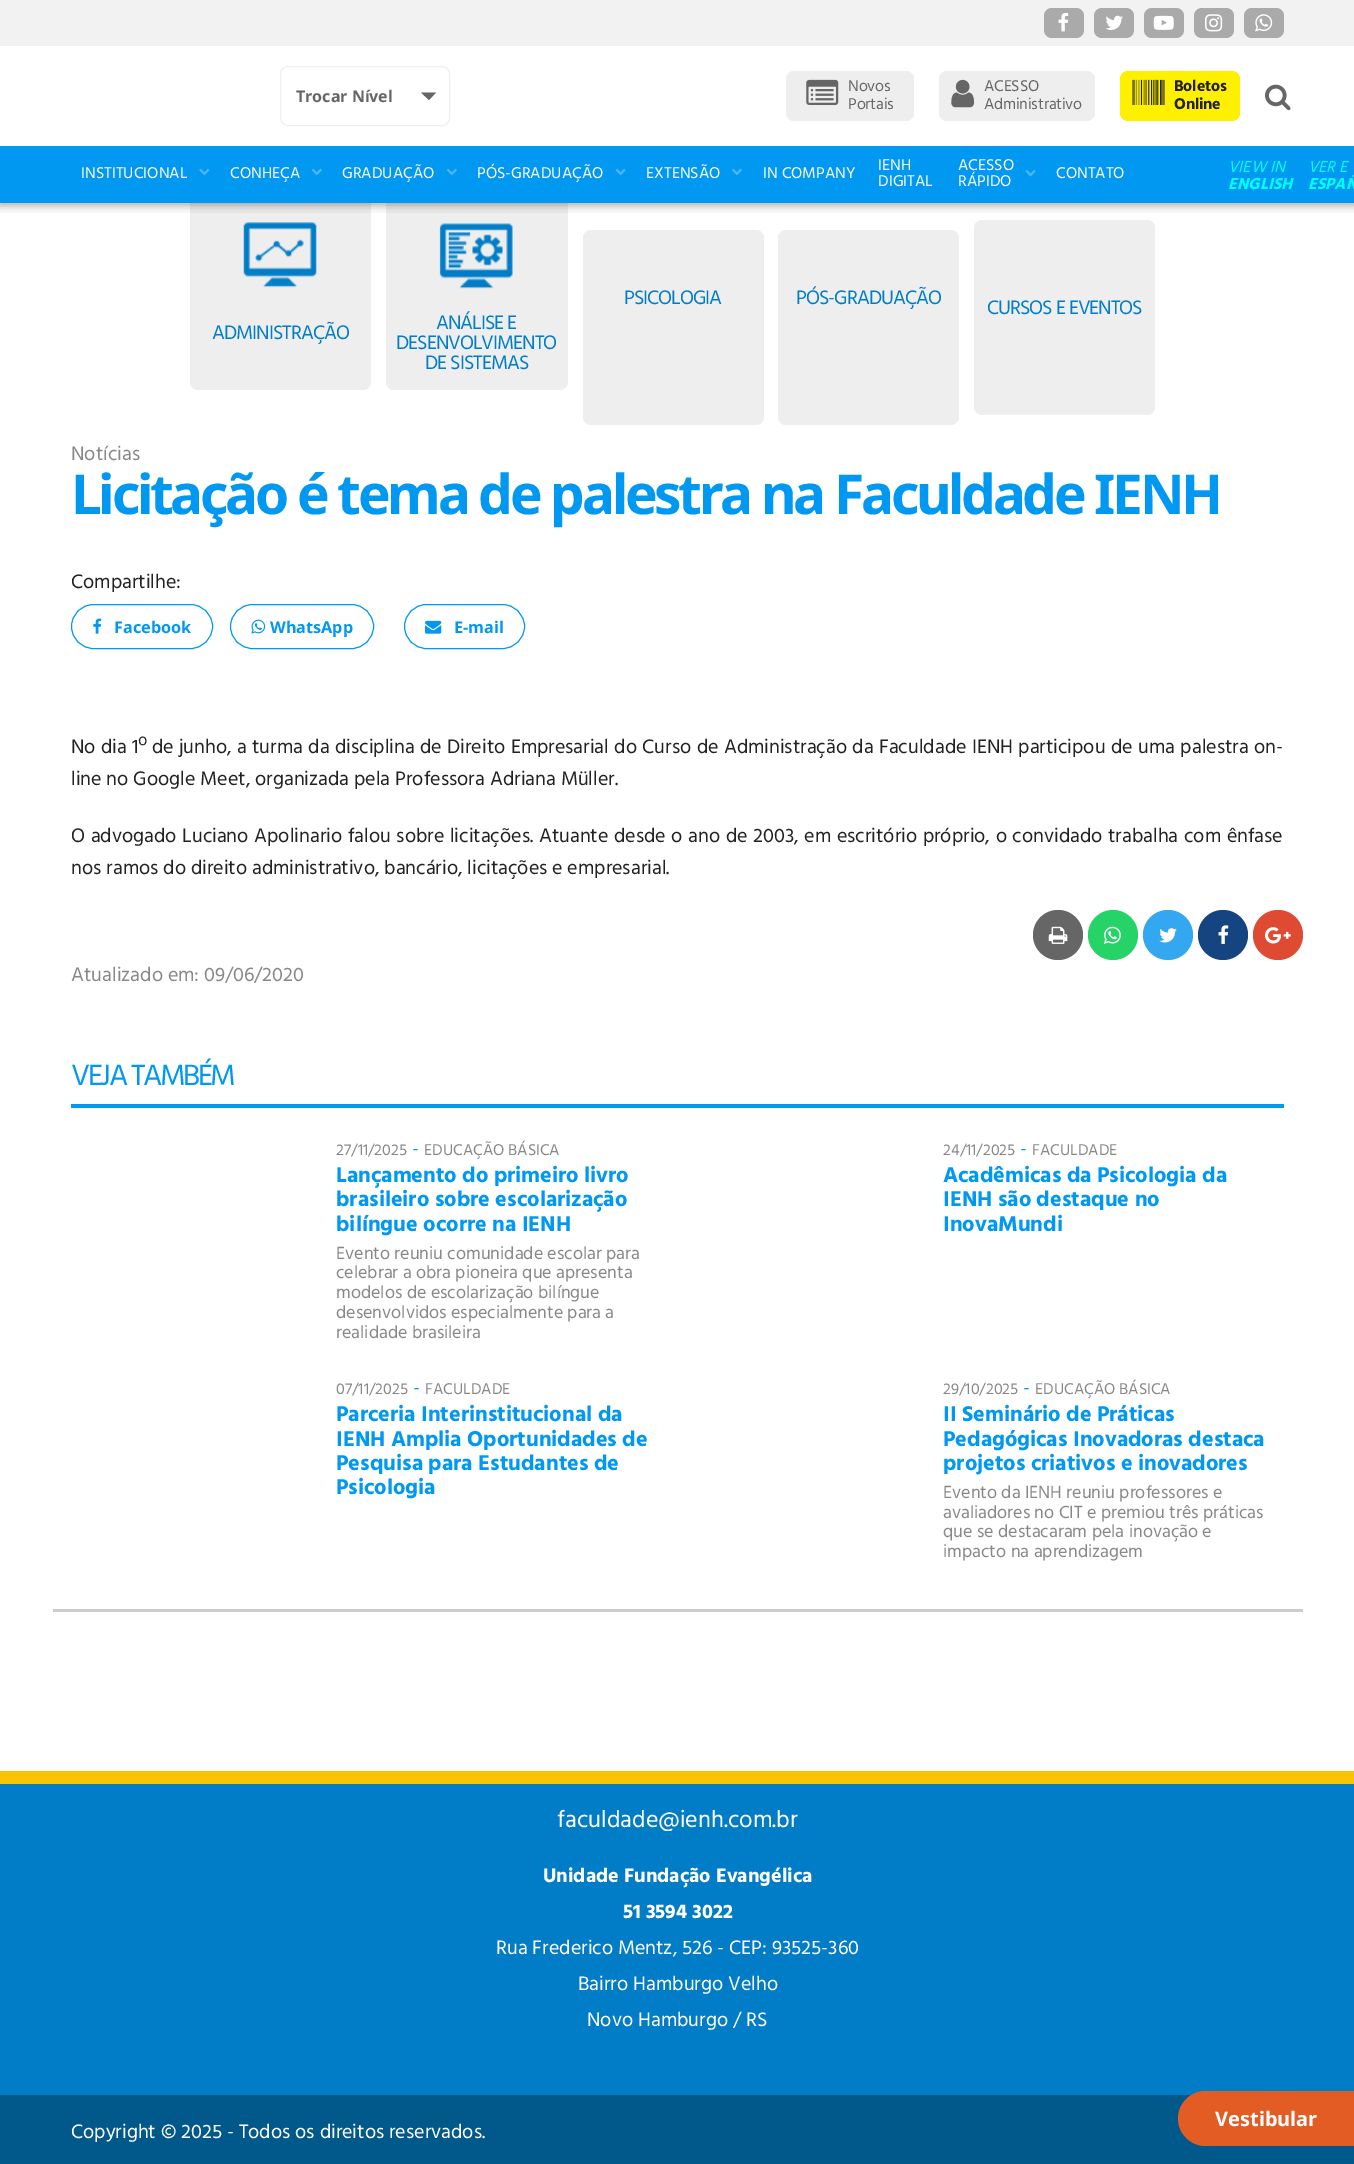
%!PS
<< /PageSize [1354 2164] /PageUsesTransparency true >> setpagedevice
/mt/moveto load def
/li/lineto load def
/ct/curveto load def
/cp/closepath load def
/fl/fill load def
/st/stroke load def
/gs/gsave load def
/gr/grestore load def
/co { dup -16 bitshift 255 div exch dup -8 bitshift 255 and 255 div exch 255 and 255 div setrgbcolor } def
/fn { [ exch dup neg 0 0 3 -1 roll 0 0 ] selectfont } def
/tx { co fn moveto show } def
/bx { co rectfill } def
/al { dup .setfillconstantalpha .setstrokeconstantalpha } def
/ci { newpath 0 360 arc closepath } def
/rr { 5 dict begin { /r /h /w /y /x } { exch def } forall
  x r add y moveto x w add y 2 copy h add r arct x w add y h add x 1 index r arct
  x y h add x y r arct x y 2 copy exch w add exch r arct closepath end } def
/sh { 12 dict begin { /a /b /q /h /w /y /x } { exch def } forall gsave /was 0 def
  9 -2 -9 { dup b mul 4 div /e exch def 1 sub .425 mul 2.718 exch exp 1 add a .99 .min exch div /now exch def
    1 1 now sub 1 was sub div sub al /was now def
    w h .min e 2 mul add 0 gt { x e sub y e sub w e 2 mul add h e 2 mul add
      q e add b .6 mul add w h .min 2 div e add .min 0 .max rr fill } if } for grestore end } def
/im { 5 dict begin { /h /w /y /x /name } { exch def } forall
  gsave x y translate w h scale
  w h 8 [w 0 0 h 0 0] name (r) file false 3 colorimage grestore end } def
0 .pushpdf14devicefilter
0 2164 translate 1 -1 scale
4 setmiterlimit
0 0 1354 2164 16#FFFFFF bx
16#EEEEEE co
974 220 181 195 8 rr fl
190 195 181 195 8 rr fl
(media/14.raw) 243 222 74 66 im
386 195 182 195 8 rr fl
(media/15.raw) 439 223 74 66 im
gs
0 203 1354 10 rectclip
16#000000 co
-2 -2 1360 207 0 6 .25 sh
gr
0 0 1354 46 16#F2F2F2 bx
16#AAAAAA co
1044 8 40 30 8 rr fl
(media/1.raw) 1058 12 11 20 im
1094 8 40 30 8 rr fl
(media/2.raw) 1105 15 18 15 im
1144 8 40 30 8 rr fl
(media/3.raw) 1153 15 21 15 im
1194 8 40 30 8 rr fl
(media/4.raw) 1205 14 18 18 im
1244 8 40 30 8 rr fl
(media/5.raw) 1255 14 18 18 im
16#EFEFEF co
280.5 66.5 169 59 7.5 rr st
16#666666 co
421 92.5 mt 436 92.5 li 429 100 li cp fl
16#EEEEEE co
786 71 128 50 8 rr fl
(media/6.raw) 806 79 33 26 im
939 71 156 50 8 rr fl
(media/7.raw) 951 79 24 29 im
16#FFF000 co
1120 71 120 50 8 rr fl
(media/8.raw) 1132 79 33 26 im
(media/9.raw) 1265 84 26 27 im
16#000000 co
0 150 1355 56 0 2 .1 sh
0 146 1354 57 16#0198F1 bx
(media/10.raw) 199 168 11 8 im
(media/11.raw) 312 168 10 7 im
(media/11.raw) 447 168 10 7 im
(media/12.raw) 615 168 11 8 im
(media/11.raw) 732 168 10 7 im
(media/13.raw) 1025 170 11 7 im
16#EEEEEE co
583 230 181 195 8 rr fl
778 230 181 195 8 rr fl
16#0198F1 co
71.5 604.5 141 44 22 rr st
(media/16.raw) 93 618 9 16 im
230.5 604.5 143 44 22 rr st
(media/17.raw) 251 619 15 15 im
404.5 604.5 120 44 22 rr st
(media/18.raw) 425 620 17 14 im
16#666666 co
1058 935 25 ci fl
(media/19.raw) 1048 926 20 18 im
16#25D366 co
1113 935 25 ci fl
(media/20.raw) 1103 926 18 18 im
16#33A7F0 co
1168 935 25 ci fl
(media/21.raw) 1159 928 18 15 im
16#154580 co
1223 935 25 ci fl
(media/22.raw) 1218 925 11 19 im
16#DF4A32 co
1278 935 25 ci fl
(media/23.raw) 1265 927 26 17 im
71 1104 1213 4 16#0198F1 bx
53 1609 1250 3 16#CCCCCC bx
0 1784 1354 311 16#017DC7 bx
0 1771 1354 13 16#F9C300 bx
0 2095 1354 69 16#01588B bx
16#E35C24 co
1205.5 2091 mt 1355 2091 li 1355 2146 li 1205.5 2146 li 1190.5 2146 1178 2133.5 1178 2118.5 ct 1178 2103.5 1190.5 2091 1205.5 2091 ct cp fl
(Trocar Nível) 296 102 /NotoSans-Bold 16 16#666666 tx
/Hind-Regular 16 fn
848 91 mt -.2 0 (Novos) ashow
848 109 mt -.2 0 (Portais) ashow
984 91 mt -.2 0 (ACESSO) ashow
984 109 mt -.2 0 (Administrativo) ashow
/Hind-Bold 16 fn
16#222222 co
1174 91 mt -.2 0 (Boletos) ashow
1174 109 mt -.2 0 (Online) ashow
(INSTITUCIONAL) 81 178 /Hind-Regular 16 16#FFFFFF tx
(CONHEÇA) 230 178 /Hind-Regular 16 16#FFFFFF tx
(GRADUAÇÃO) 342 178 /Hind-Regular 16 16#FFFFFF tx
(PÓS-GRADUAÇÃO) 477 178 /Hind-Regular 16 16#FFFFFF tx
(EXTENSÃO) 646 178 /Hind-Regular 16 16#FFFFFF tx
(IN COMPANY) 763 178 /Hind-Regular 16 16#FFFFFF tx
(IENH) 878 170 /Hind-Regular 16 16#FFFFFF tx
(DIGITAL) 878 186 /Hind-Regular 16 16#FFFFFF tx
(ACESSO) 958 170 /Hind-Regular 16 16#FFFFFF tx
(RÁPIDO) 958 186 /Hind-Regular 16 16#FFFFFF tx
(CONTATO) 1056 178 /Hind-Regular 16 16#FFFFFF tx
(VIEW IN) 1228 172 /Hind-Italic 16.25 16#00FEFF tx
(ENGLISH) 1228 189 /Hind-BoldItalic 16.25 16#00FEFF tx
(VER E) 1308 172 /Hind-Italic 16.25 16#00FEFF tx
(ESPAÑ) 1308 189 /Hind-BoldItalic 16.25 16#00FEFF tx
/Hind-Regular 20 fn
16#017DC7 co
624 304 mt -1 0 (PSICOLOGIA) ashow
796 304 mt -1 0 (PÓS-GRADUAÇÃO) ashow
987 314 mt -1 0 (CURSOS E EVENTOS) ashow
212 339 mt -1 0 (ADMINISTRAÇÃO) ashow
436 329 mt -1 0 (ANÁLISE E) ashow
396 349 mt -1 0 (DESENVOLVIMENTO) ashow
425 369 mt -1 0 (DE SISTEMAS) ashow
(Notícias) 71 460 /Hind-Regular 20 16#888888 tx
/NotoSans-Bold 55 fn
16#0198F1 co
71 514 mt -3.3 0 (Licitação é tema de palestra na Faculdade IENH) ashow
(Compartilhe:) 71 588 /Hind-Regular 20 16#222222 tx
(Facebook) 114 633 /NotoSans-Bold 16.25 16#0198F1 tx
(WhatsApp) 270 633 /NotoSans-Bold 16.25 16#0198F1 tx
(E-mail) 454 633 /NotoSans-Bold 16.25 16#0198F1 tx
/Hind-Regular 20 fn
16#222222 co
71 753 mt .5 0 32 (No dia 1º de junho, a turma da disciplina de Direito Empresarial do Curso de Administração da Faculdade IENH participou de uma palestra on-) widthshow
(line no Google Meet, organizada pela Professora Adriana Müller.) 71 785 /Hind-Regular 20 16#222222 tx
71 842 mt .75 0 32 (O advogado Luciano Apolinario falou sobre licitações. Atuante desde o ano de 2003, em escritório próprio, o convidado trabalha com ênfase) widthshow
(nos ramos do direito administrativo, bancário, licitações e empresarial.) 71 874 /Hind-Regular 20 16#222222 tx
(Atualizado em: 09/06/2020) 71 981 /Hind-Regular 20 16#888888 tx
/Hind-Regular 30 fn
16#0198F1 co
71 1085 mt -2.4 0 (VEJA TAMBÉM) ashow
(27/11/2025) 336 1155 /Hind-Regular 16 16#888888 tx
(-) 412 1155 /Hind-Regular 20 16#0198F1 tx
(EDUCAÇÃO BÁSICA) 424 1155 /Hind-Regular 16 16#888888 tx
(Lançamento do primeiro livro) 336 1182 /Hind-Bold 22 16#0198F1 tx
(brasileiro sobre escolarização) 336 1206 /Hind-Bold 22 16#0198F1 tx
(bilíngue ocorre na IENH) 336 1231 /Hind-Bold 22 16#0198F1 tx
(Evento reuniu comunidade escolar para) 336 1259 /Hind-Regular 18 16#888888 tx
(celebrar a obra pioneira que apresenta) 336 1278 /Hind-Regular 18 16#888888 tx
(modelos de escolarização bilíngue) 336 1298 /Hind-Regular 18 16#888888 tx
(desenvolvidos especialmente para a) 336 1318 /Hind-Regular 18 16#888888 tx
(realidade brasileira) 336 1338 /Hind-Regular 18 16#888888 tx
(24/11/2025) 943 1155 /Hind-Regular 16 16#888888 tx
(-) 1020 1155 /Hind-Regular 20 16#0198F1 tx
(FACULDADE) 1032 1155 /Hind-Regular 16 16#888888 tx
(Acadêmicas da Psicologia da) 943 1182 /Hind-Bold 22 16#0198F1 tx
(IENH são destaque no) 943 1206 /Hind-Bold 22 16#0198F1 tx
(InovaMundi) 943 1231 /Hind-Bold 22 16#0198F1 tx
(07/11/2025) 336 1394 /Hind-Regular 16 16#888888 tx
(-) 413 1394 /Hind-Regular 20 16#0198F1 tx
(FACULDADE) 425 1394 /Hind-Regular 16 16#888888 tx
(Parceria Interinstitucional da) 336 1421 /Hind-Bold 22 16#0198F1 tx
(IENH Amplia Oportunidades de) 336 1446 /Hind-Bold 22 16#0198F1 tx
(Pesquisa para Estudantes de) 336 1470 /Hind-Bold 22 16#0198F1 tx
(Psicologia) 336 1494 /Hind-Bold 22 16#0198F1 tx
(29/10/2025) 943 1394 /Hind-Regular 16 16#888888 tx
(-) 1023 1394 /Hind-Regular 20 16#0198F1 tx
(EDUCAÇÃO BÁSICA) 1035 1394 /Hind-Regular 16 16#888888 tx
(II Seminário de Práticas) 943 1421 /Hind-Bold 22 16#0198F1 tx
(Pedagógicas Inovadoras destaca) 943 1446 /Hind-Bold 22 16#0198F1 tx
(projetos criativos e inovadores) 943 1470 /Hind-Bold 22 16#0198F1 tx
(Evento da IENH reuniu professores e) 943 1498 /Hind-Regular 18 16#888888 tx
(avaliadores no CIT e premiou três práticas) 943 1518 /Hind-Regular 18 16#888888 tx
(que se destacaram pela inovação e) 943 1537 /Hind-Regular 18 16#888888 tx
(impacto na aprendizagem) 943 1557 /Hind-Regular 18 16#888888 tx
(faculdade@ienh.com.br) 557 1827 /Hind-Regular 24 16#FFFFFF tx
(Unidade Fundação Evangélica) 543 1882 /Hind-Bold 20 16#FFFFFF tx
(51 3594 3022) 623 1918 /Hind-Bold 20 16#FFFFFF tx
(Rua Frederico Mentz, 526 - CEP: 93525-360) 496 1954 /Hind-Regular 20 16#FFFFFF tx
(Bairro Hamburgo Velho) 578 1990 /Hind-Regular 20 16#FFFFFF tx
(Novo Hamburgo / RS) 587 2026 /Hind-Regular 20 16#FFFFFF tx
(Copyright © 2025 - Todos os direitos reservados.) 71 2138 /Hind-Regular 20 16#FFFFFF tx
(Vestibular) 1215 2126 /NotoSans-Bold 20 16#FFFFFF tx
.poppdf14devicefilter showpage
